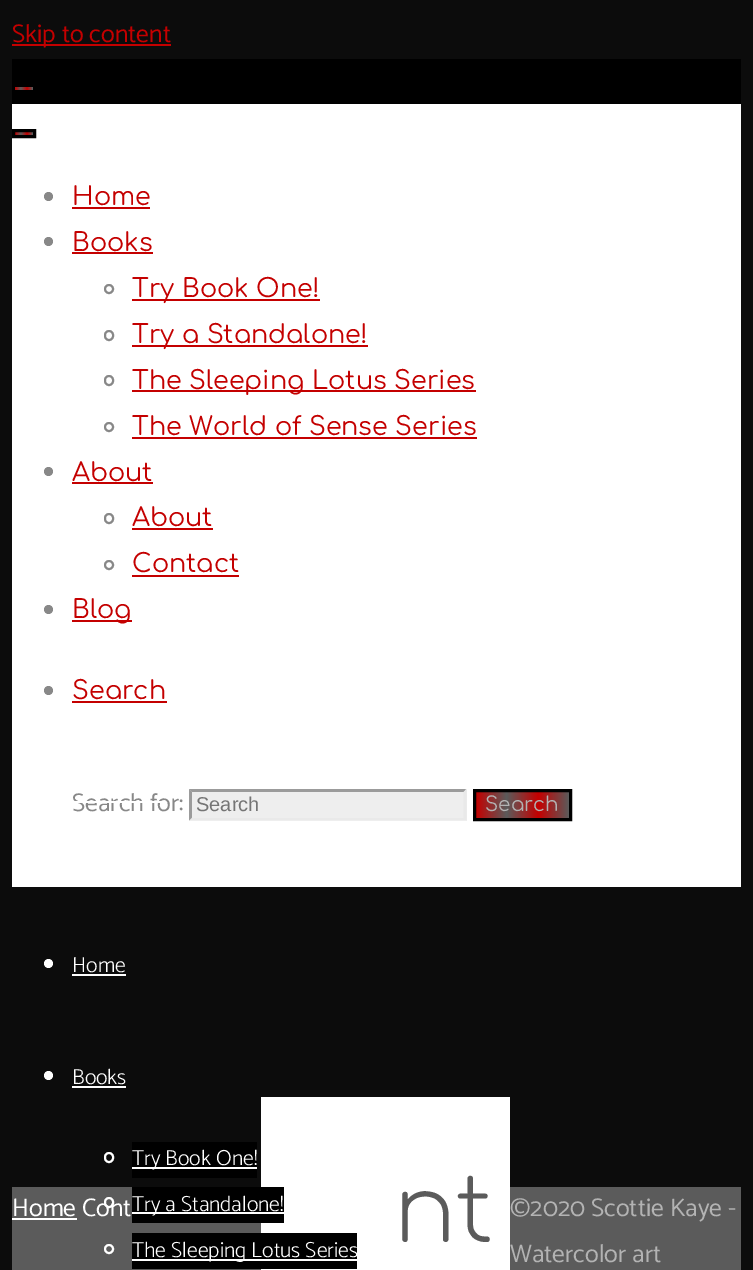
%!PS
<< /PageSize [753 1270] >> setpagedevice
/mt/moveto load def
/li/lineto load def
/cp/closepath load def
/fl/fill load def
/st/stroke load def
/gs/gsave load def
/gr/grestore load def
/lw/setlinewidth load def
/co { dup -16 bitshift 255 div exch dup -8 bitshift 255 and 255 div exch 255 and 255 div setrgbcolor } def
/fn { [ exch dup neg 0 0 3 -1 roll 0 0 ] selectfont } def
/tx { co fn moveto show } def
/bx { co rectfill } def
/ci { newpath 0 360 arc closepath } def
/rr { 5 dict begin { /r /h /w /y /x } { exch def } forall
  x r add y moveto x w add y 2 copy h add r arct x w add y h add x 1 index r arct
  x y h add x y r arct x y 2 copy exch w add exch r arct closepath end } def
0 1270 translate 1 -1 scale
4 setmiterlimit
0 0 753 1270 16#0C0C0C bx
12 44 159 2 16#C40000 bx
12 104 729 783 16#FFFFFF bx
12 59 729 45 16#000000 bx
gs 15 87 mt 33 87 li 33 90 li 15 90 li cp clip newpath
<< /ShadingType 2 /ColorSpace /DeviceRGB /Coords [15 89 33 89] /Extend [true true] /Function << /FunctionType 3 /Domain [0 1] /Functions [<< /FunctionType 2 /Domain [0 1] /C0 [.769 0 0] /C1 [.357 .357 .357] /N 1 >> << /FunctionType 2 /Domain [0 1] /C0 [.357 .357 .357] /C1 [.769 0 0] /N 1 >> << /FunctionType 2 /Domain [0 1] /C0 [.769 0 0] /C1 [.357 .357 .357] /N 1 >>] /Bounds [.33 .67] /Encode [0 1 0 1 0 1] >> >> shfill gr
gs 15 132 mt 33 132 li 33 135 li 15 135 li cp clip newpath
<< /ShadingType 2 /ColorSpace /DeviceRGB /Coords [15 134 33 134] /Extend [true true] /Function << /FunctionType 3 /Domain [0 1] /Functions [<< /FunctionType 2 /Domain [0 1] /C0 [.769 0 0] /C1 [.357 .357 .357] /N 1 >> << /FunctionType 2 /Domain [0 1] /C0 [.357 .357 .357] /C1 [.769 0 0] /N 1 >> << /FunctionType 2 /Domain [0 1] /C0 [.769 0 0] /C1 [.357 .357 .357] /N 1 >>] /Bounds [.33 .67] /Encode [0 1 0 1 0 1] >> >> shfill gr
3 lw
13.5 130.5 21 6 rectstroke
16#888888 co
48.5 196.5 4.5 ci fl
72 207 78 2 16#C40000 bx
16#888888 co
48.5 241.5 4.5 ci fl
72 252 81 2 16#C40000 bx
16#888888 co
2 lw
109 289 4 ci st
132 299 188 2 16#C40000 bx
16#888888 co
105 331 8 9 4 rr st
132 345 236 2 16#C40000 bx
16#888888 co
105 376 8 9 4 rr st
132 390 344 2 16#C40000 bx
16#888888 co
109 427 4 ci st
132 437 345 2 16#C40000 bx
16#888888 co
48.5 471.5 4.5 ci fl
72 482 81 2 16#C40000 bx
16#888888 co
105 514 8 9 4 rr st
132 528 81 2 16#C40000 bx
16#888888 co
109 565 4 ci st
132 575 107 2 16#C40000 bx
16#888888 co
48.5 609.5 4.5 ci fl
72 620 60 2 16#C40000 bx
16#888888 co
48.5 690.5 4.5 ci fl
72 701 95 2 16#C40000 bx
189 789 278 32 16#EEEEEE bx
16#9B9B9B co
189 789 mt 466 789 li 464 792 li 192 792 li cp fl
16#E9E9E9 co
466.5 789 mt 466.5 820.5 li 463.5 817.5 li 463.5 792 li cp fl
466 820 mt 189 820 li 192 818 li 464 818 li cp fl
16#9B9B9B co
189 820.5 mt 189 789 li 192 792 li 192 817.5 li cp fl
gs 476 792 mt 569 792 li 569 818 li 476 818 li cp clip newpath
<< /ShadingType 2 /ColorSpace /DeviceRGB /Coords [476 805 569 805] /Extend [true true] /Function << /FunctionType 3 /Domain [0 1] /Functions [<< /FunctionType 2 /Domain [0 1] /C0 [.769 0 0] /C1 [.357 .357 .357] /N 1 >> << /FunctionType 2 /Domain [0 1] /C0 [.357 .357 .357] /C1 [.769 0 0] /N 1 >> << /FunctionType 2 /Domain [0 1] /C0 [.769 0 0] /C1 [.357 .357 .357] /N 1 >>] /Bounds [.33 .67] /Encode [0 1 0 1 0 1] >> >> shfill gr
16#000000 co
3 lw
474.5 790.5 96 29 rectstroke
16#FFFFFF co
48.5 963.5 4.5 ci fl
72 974 54 2 16#FFFFFF bx
48.5 1075.5 4.5 ci fl
72 1086 54 2 16#FFFFFF bx
2 lw
105 1153 8 9 4 rr st
132 1142 125 36 16#000000 bx
132 1167 125 2 16#FFFFFF bx
12 1187 729 83 16#5B5B5B bx
16#FFFFFF co
105 1198 8 9 4 rr st
261 1097 249 173 16#FFFFFF bx
132 1187 152 36 16#000000 bx
132 1212 152 2 16#FFFFFF bx
109 1249 4 ci st
132 1233 225 36 16#000000 bx
132 1259 225 2 16#FFFFFF bx
12 1218 65 2 16#FFFFFF bx
(Skip to content) 12 42 /Catamaran-Regular 25.5 16#C40000 tx
(Home) 72 205 /Comfortaa-Regular 25.5 16#C40000 tx
(Books) 72 251 /Comfortaa-Regular 25.5 16#C40000 tx
(Try Book One!) 132 297 /Comfortaa-Regular 25.5 16#C40000 tx
(Try a Standalone!) 132 343 /Comfortaa-Regular 25.5 16#C40000 tx
(The Sleeping Lotus Series) 132 389 /Comfortaa-Regular 25.5 16#C40000 tx
(The World of Sense Series) 132 435 /Comfortaa-Regular 25.5 16#C40000 tx
(About) 72 481 /Comfortaa-Regular 25.5 16#C40000 tx
(About) 132 526 /Comfortaa-Regular 25.5 16#C40000 tx
(Contact) 132 572 /Comfortaa-Regular 25.5 16#C40000 tx
(Blog) 72 618 /Comfortaa-Regular 25.5 16#C40000 tx
(Search) 72 699 /Comfortaa-Regular 25.5 16#C40000 tx
(Search for:) 72 811 /Catamaran-Regular 25.5 16#888888 tx
(Search) 196 811 /LiberationSans-Regular 20 16#757575 tx
(Search) 485 811 /Comfortaa-Regular 20 16#B3B3B3 tx
74 801 90 2 16#FFFFFF bx
(Home) 72 972 /Catamaran-Light 21.75 16#FFFFFF tx
(Books) 72 1084 /Catamaran-Light 21.75 16#FFFFFF tx
(Try Book One!) 132 1165 /Catamaran-Light 21.75 16#FFFFFF tx
(Try a Standalone!) 132 1211 /Catamaran-Light 21.75 16#FFFFFF tx
(The Sleeping Lotus Series) 132 1257 /Catamaran-Light 21.75 16#FFFFFF tx
(Home Cont) 12 1216 /Catamaran-Regular 25.5 16#FFFFFF tx
(nt) 394 1242 /Comfortaa-Light 92 16#5B5B5B tx
(©2020 Scottie Kaye -) 510 1216 /Catamaran-Regular 25.5 16#B3B3B3 tx
(Watercolor art) 510 1262 /Catamaran-Regular 25.5 16#B3B3B3 tx
showpage
